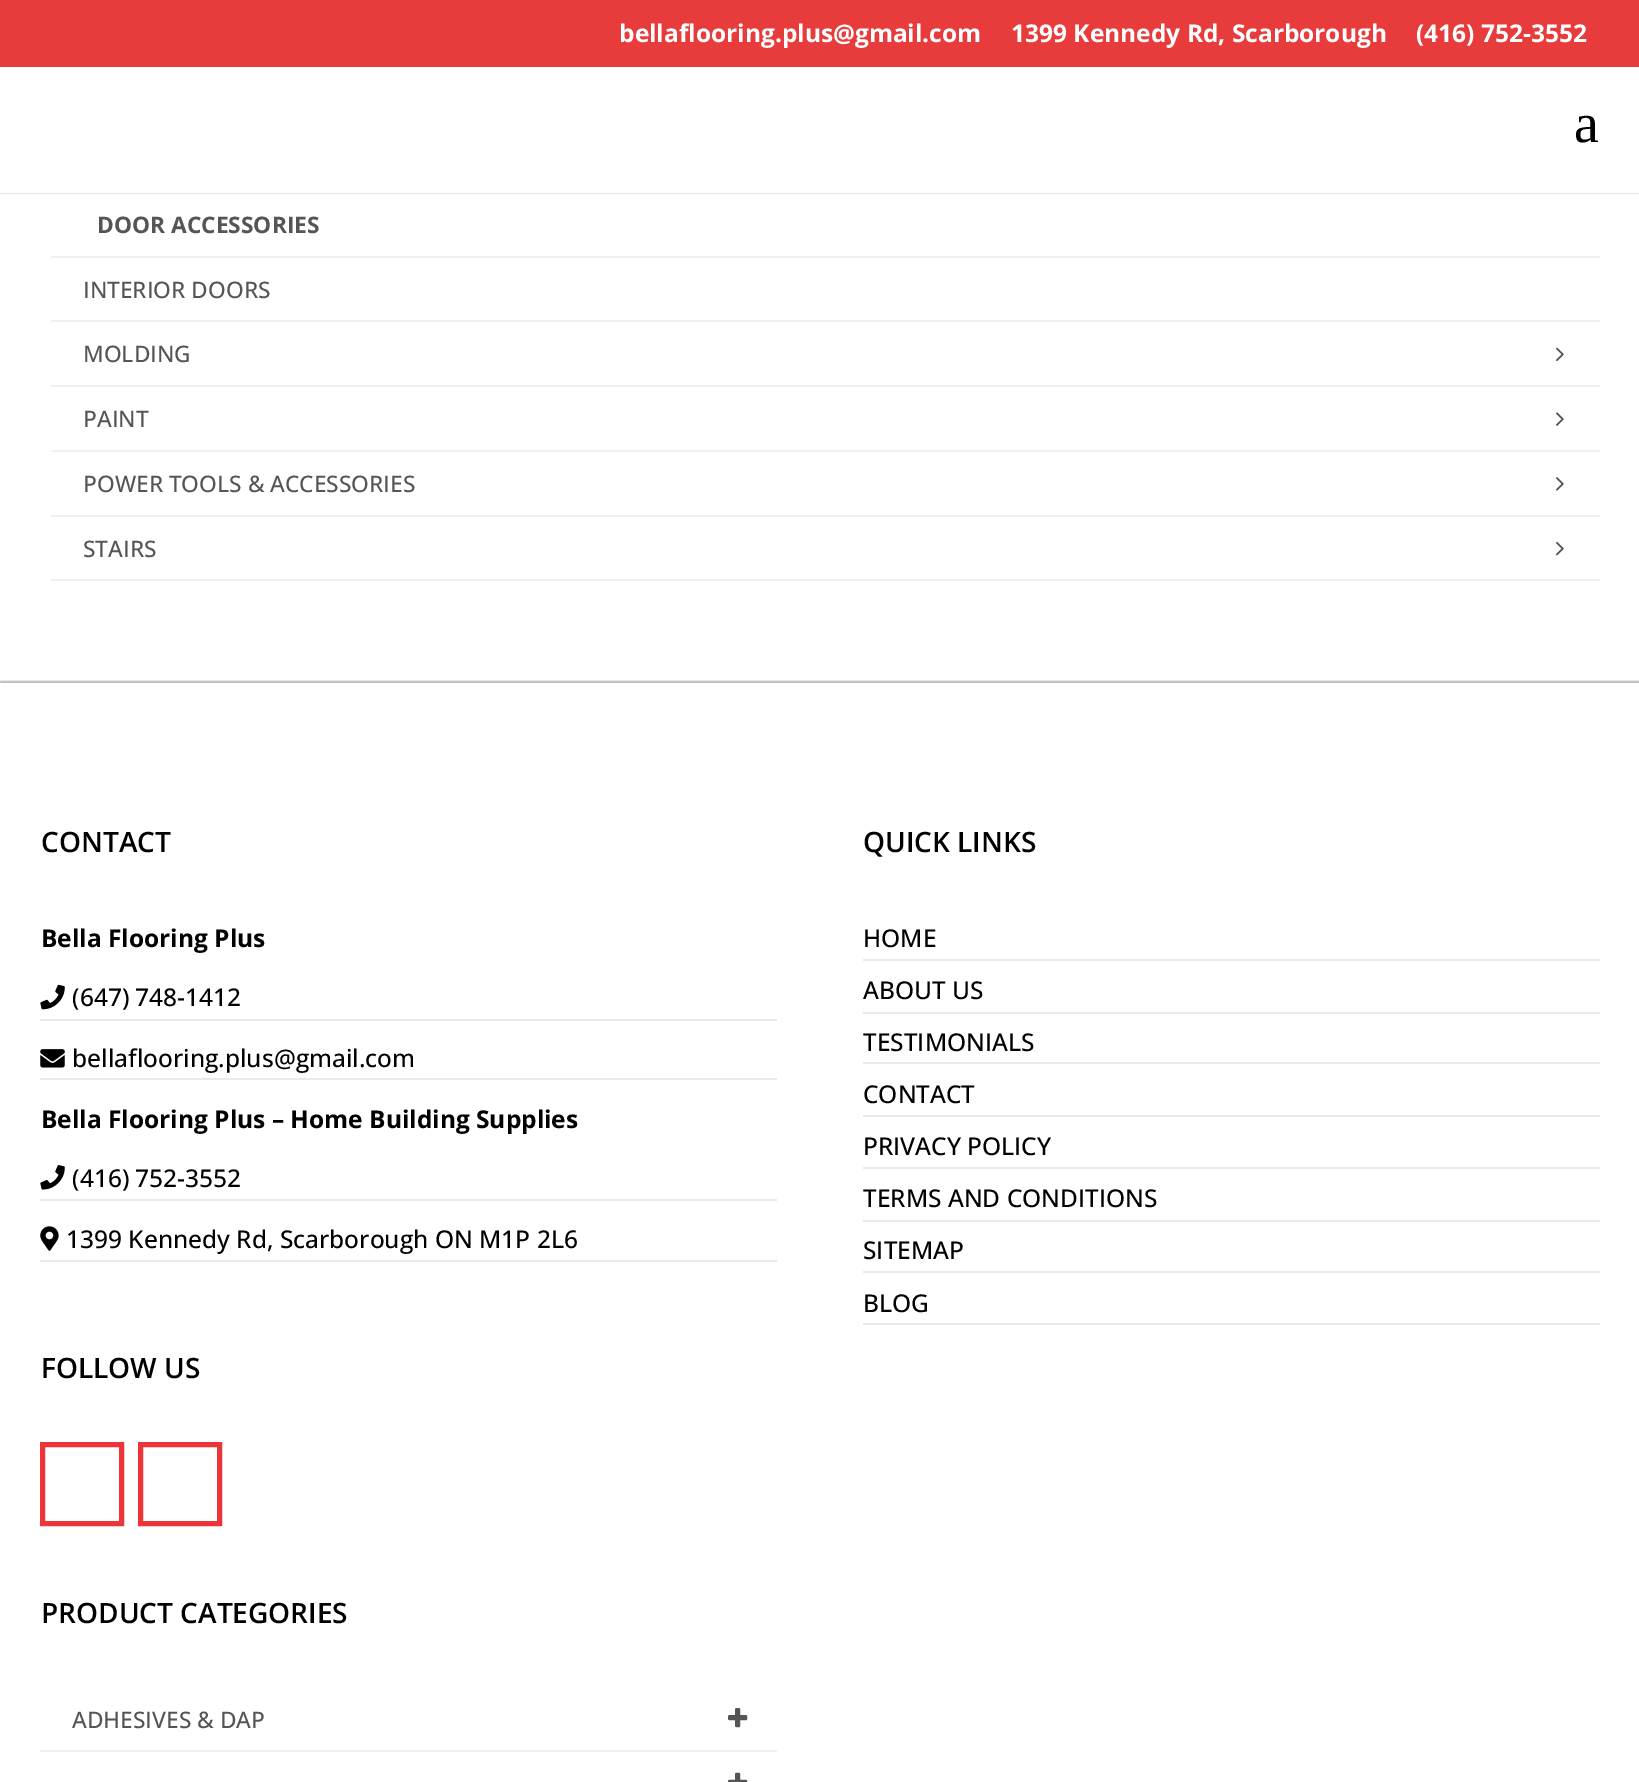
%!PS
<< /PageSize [1639 1782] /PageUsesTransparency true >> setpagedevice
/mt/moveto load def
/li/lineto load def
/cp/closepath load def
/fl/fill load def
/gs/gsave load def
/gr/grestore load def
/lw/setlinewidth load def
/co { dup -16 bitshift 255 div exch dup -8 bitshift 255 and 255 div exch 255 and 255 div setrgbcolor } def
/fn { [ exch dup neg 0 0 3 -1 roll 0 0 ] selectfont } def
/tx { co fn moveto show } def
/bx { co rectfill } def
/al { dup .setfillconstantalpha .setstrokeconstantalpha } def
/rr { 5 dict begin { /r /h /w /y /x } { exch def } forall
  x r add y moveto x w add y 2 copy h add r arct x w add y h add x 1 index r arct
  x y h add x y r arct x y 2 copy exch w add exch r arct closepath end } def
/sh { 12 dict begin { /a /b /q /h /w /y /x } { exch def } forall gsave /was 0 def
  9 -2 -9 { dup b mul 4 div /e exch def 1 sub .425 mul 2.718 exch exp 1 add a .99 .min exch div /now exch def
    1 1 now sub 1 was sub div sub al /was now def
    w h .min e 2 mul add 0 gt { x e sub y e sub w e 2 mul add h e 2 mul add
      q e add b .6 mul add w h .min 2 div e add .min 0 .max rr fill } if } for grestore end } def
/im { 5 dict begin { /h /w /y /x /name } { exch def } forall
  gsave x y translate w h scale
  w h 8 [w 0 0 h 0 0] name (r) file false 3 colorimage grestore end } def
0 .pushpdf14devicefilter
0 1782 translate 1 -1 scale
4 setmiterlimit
0 0 1639 1782 16#FFFFFF bx
0 0 1639 67 16#E83B3B bx
16#E6E6E6 co
0 192 mt 0 194 li 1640 194 li 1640 54 li 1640 192 li cp fl
0 192 1639 1 16#FFFFFF bx
51 256 1549 2 16#F0F0F0 bx
51 320 1549 2 16#F0F0F0 bx
51 385 1549 2 16#F0F0F0 bx
(media/1.raw) 1556 347 8 15 im
51 450 1549 2 16#F0F0F0 bx
(media/2.raw) 1556 412 8 14 im
51 515 1549 2 16#F0F0F0 bx
(media/3.raw) 1556 477 8 14 im
51 579 1549 2 16#F0F0F0 bx
(media/4.raw) 1556 541 8 15 im
gs
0 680 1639 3 rectclip
16#000000 co
0 681 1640 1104 0 1 .3 sh
gr
40 1019 737 2 16#EAEAEA bx
(media/5.raw) 40 984 25 26 im
40 1078 737 2 16#EAEAEA bx
(media/6.raw) 40 1049 25 19 im
40 1199 737 2 16#EAEAEA bx
(media/7.raw) 40 1165 25 25 im
40 1260 737 2 16#EAEAEA bx
(media/8.raw) 40 1226 19 25 im
16#EB353A co
5 lw
42.5 1444.5 79 79 rectstroke
140.5 1444.5 79 79 rectstroke
863 959 737 2 16#EAEAEA bx
863 1012 737 2 16#EAEAEA bx
863 1062 737 2 16#EAEAEA bx
863 1115 737 2 16#EAEAEA bx
863 1167 737 2 16#EAEAEA bx
863 1220 737 2 16#EAEAEA bx
863 1271 737 2 16#EAEAEA bx
863 1323 737 2 16#EAEAEA bx
40 1750 737 2 16#F0F0F0 bx
(media/9.raw) 728 1708 20 20 im
(media/10.raw) 728 1772 20 10 im
(bellaflooring.plus@gmail.com) 619 42 /OpenSans-Bold 24.5 16#FFFFFF tx
(1399 Kennedy Rd, Scarborough) 1011 42 /OpenSans-Bold 24.5 16#FFFFFF tx
(\(416\) 752-3552) 1416 42 /OpenSans-Bold 24.5 16#FFFFFF tx
(a) 1574 142 /LiberationSerif-Regular 56 16#000000 tx
(DOOR ACCESSORIES) 97 233 /OpenSans-Bold 22.75 16#555555 tx
(INTERIOR DOORS) 83 298 /OpenSans-Medium 22.75 16#555555 tx
(MOLDING) 83 362 /OpenSans-Medium 22.75 16#555555 tx
(PAINT) 83 427 /OpenSans-Medium 22.75 16#555555 tx
(POWER TOOLS & ACCESSORIES) 83 492 /OpenSans-Medium 22.75 16#555555 tx
(STAIRS) 83 557 /OpenSans-Medium 22.75 16#555555 tx
(CONTACT) 41 852 /OpenSans-SemiBold 28 16#000000 tx
(Bella Flooring Plus) 41 947 /OpenSans-Bold 24.5 16#000000 tx
(\(647\) 748-1412) 72 1006 /OpenSans-Medium 24.5 16#000000 tx
(bellaflooring.plus@gmail.com) 72 1067 /OpenSans-Medium 24.5 16#000000 tx
(Bella Flooring Plus – Home Building Supplies) 41 1128 /OpenSans-Bold 24.5 16#000000 tx
(\(416\) 752-3552) 72 1187 /OpenSans-Medium 24.5 16#000000 tx
(1399 Kennedy Rd, Scarborough ON M1P 2L6) 66 1248 /OpenSans-Medium 24.5 16#000000 tx
(FOLLOW US) 41 1378 /OpenSans-SemiBold 28 16#000000 tx
(QUICK LINKS) 863 852 /OpenSans-SemiBold 28 16#000000 tx
(HOME) 863 947 /OpenSans-Medium 24.5 16#000000 tx
(ABOUT US) 863 999 /OpenSans-Medium 24.5 16#000000 tx
(TESTIMONIALS) 863 1051 /OpenSans-Medium 24.5 16#000000 tx
(CONTACT) 863 1103 /OpenSans-Medium 24.5 16#000000 tx
(PRIVACY POLICY) 863 1155 /OpenSans-Medium 24.5 16#000000 tx
(TERMS AND CONDITIONS) 863 1207 /OpenSans-Medium 24.5 16#000000 tx
(SITEMAP) 863 1259 /OpenSans-Medium 24.5 16#000000 tx
(BLOG) 863 1312 /OpenSans-Medium 24.5 16#000000 tx
(PRODUCT CATEGORIES) 41 1623 /OpenSans-SemiBold 28 16#000000 tx
(ADHESIVES & DAP) 72 1728 /OpenSans-Medium 22.75 16#555555 tx
.poppdf14devicefilter showpage
